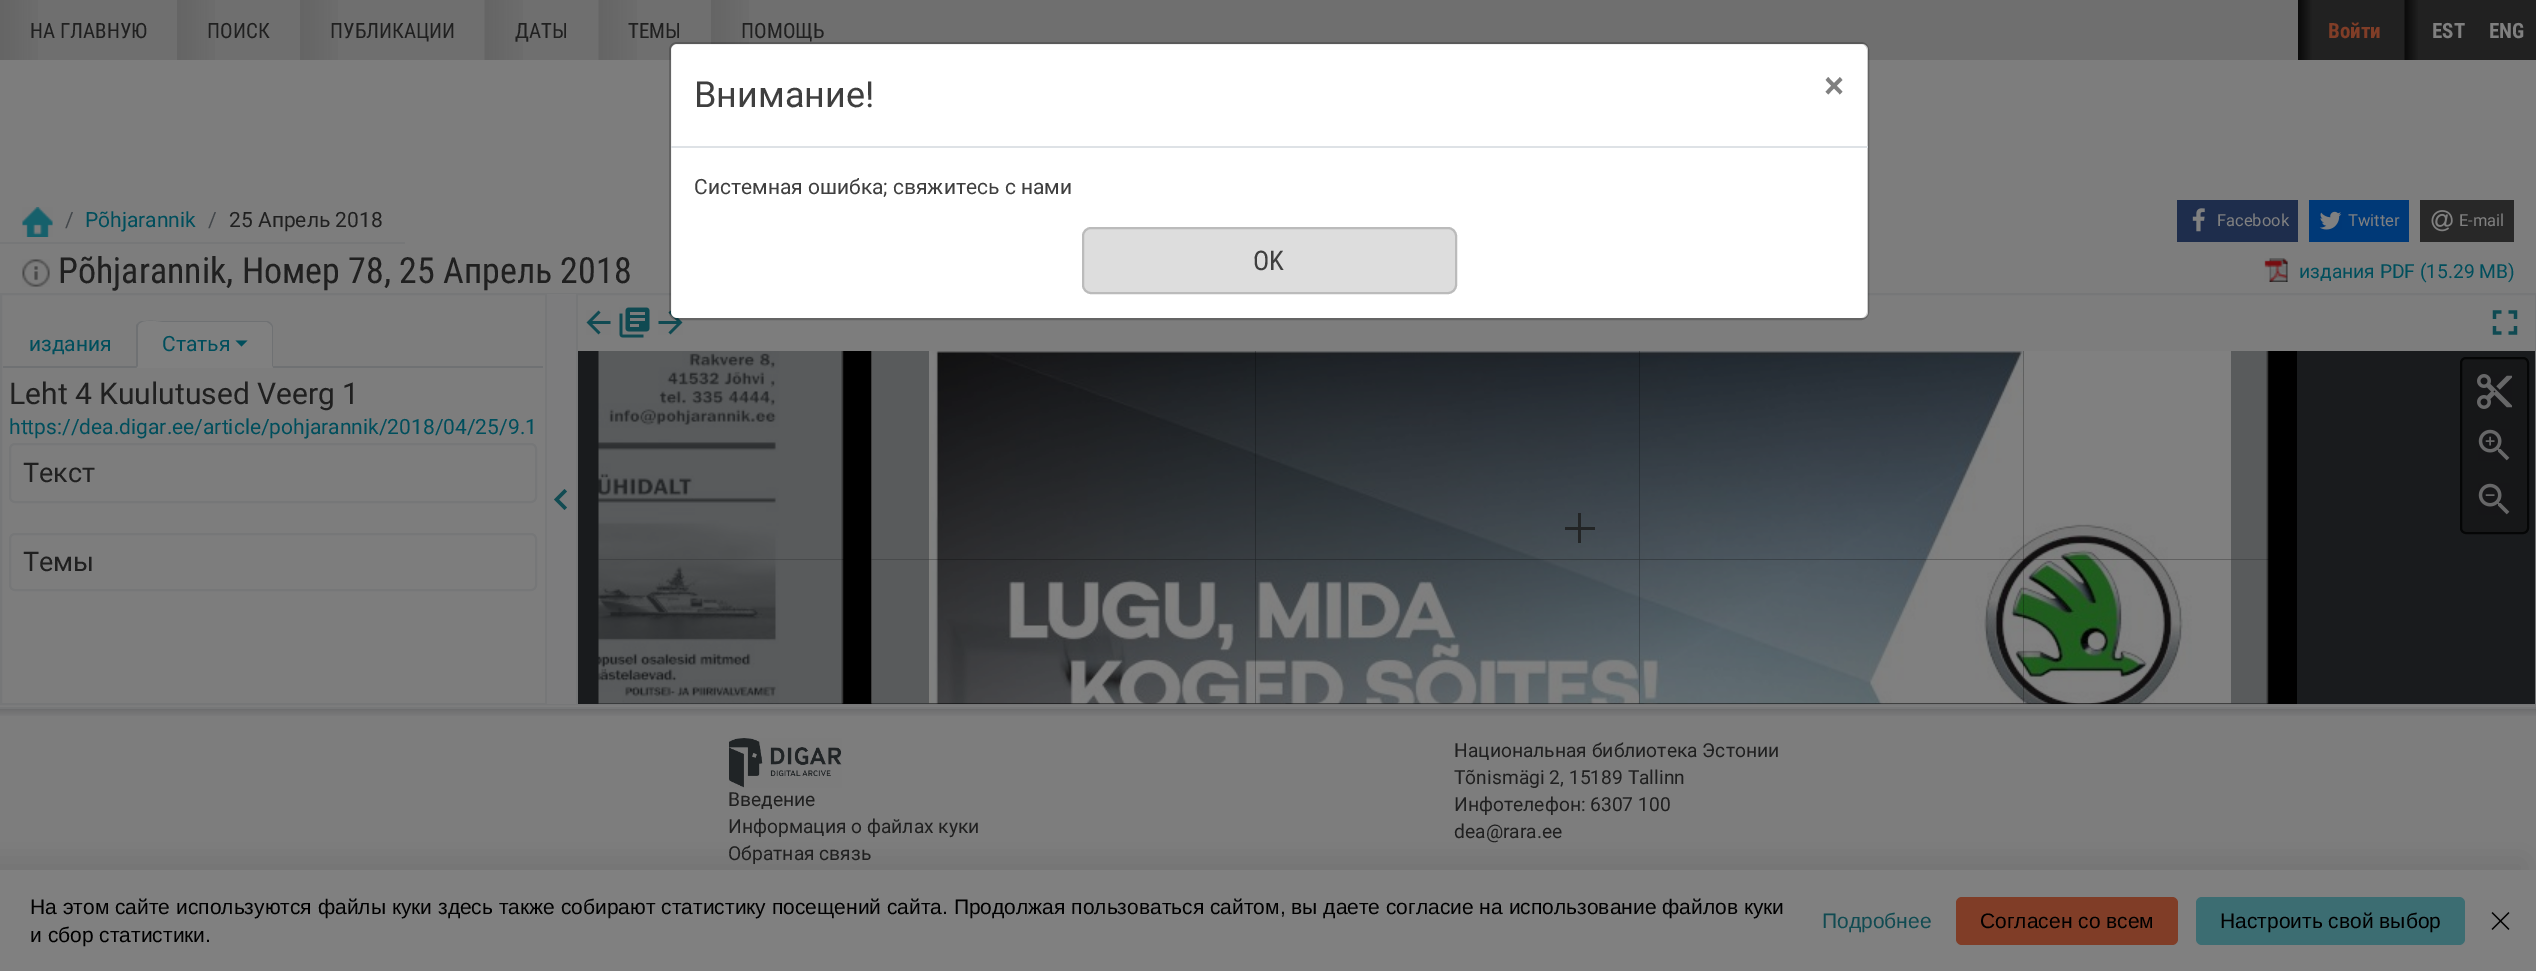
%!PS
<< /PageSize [2536 971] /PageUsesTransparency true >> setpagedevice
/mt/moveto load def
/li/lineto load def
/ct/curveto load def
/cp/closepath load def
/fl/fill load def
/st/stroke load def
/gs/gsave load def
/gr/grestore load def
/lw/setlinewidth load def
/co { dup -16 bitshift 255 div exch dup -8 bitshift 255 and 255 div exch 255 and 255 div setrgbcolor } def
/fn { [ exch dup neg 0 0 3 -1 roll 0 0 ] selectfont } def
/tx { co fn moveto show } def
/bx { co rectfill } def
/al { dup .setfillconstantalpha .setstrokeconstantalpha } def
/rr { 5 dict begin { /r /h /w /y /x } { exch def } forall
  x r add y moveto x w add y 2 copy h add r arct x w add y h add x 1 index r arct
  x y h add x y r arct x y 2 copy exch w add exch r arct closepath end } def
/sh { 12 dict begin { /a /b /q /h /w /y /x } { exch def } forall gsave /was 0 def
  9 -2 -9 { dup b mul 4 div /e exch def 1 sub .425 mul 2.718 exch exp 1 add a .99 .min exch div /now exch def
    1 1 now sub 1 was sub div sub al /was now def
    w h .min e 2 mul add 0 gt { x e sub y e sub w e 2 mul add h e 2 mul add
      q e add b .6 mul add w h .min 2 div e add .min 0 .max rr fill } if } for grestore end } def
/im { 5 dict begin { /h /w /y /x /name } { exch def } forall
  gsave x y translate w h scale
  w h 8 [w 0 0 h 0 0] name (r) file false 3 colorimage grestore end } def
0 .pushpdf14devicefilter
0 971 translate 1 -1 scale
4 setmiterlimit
0 0 2536 971 16#7D7D7D bx
0 0 2298 60 16#6F6F6F bx
(media/1.raw) 0 0 38 60 im
(media/1.raw) 177 0 38 60 im
(media/2.raw) 300 0 38 60 im
(media/3.raw) 484 0 39 60 im
(media/3.raw) 598 0 39 60 im
(media/4.raw) 711 0 38 44 im
2298 0 238 60 16#212121 bx
(media/5.raw) 2404 0 14 60 im
(media/6.raw) 2298 0 14 60 im
0 242 405 2 16#767778 bx
(media/7.raw) 22 207 31 30 im
2177 200 121 42 16#1E2D4C bx
(media/8.raw) 2192 208 13 24 im
2309 200 100 42 16#003977 bx
(media/9.raw) 2319 211 23 19 im
2420 200 94 42 16#282828 bx
(media/10.raw) 2431 210 22 22 im
16#767778 co
2 lw
1 294 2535 410 rectstroke
(media/15.raw) 658 310 25 25 im
16#FFFFFF co
671 44 1197 274 6 rr fl
0.2 al
16#000000 co
670 43 1198 276 7 rr st
1 al
671 146 1197 2 16#DEE2E6 bx
16#DDDDDD co
1083 228 373 65 8 rr gs fl gr
16#BBBBBB co
st
(media/11.raw) 22 259 28 28 im
(media/12.raw) 2264 258 24 24 im
3 366 540 2 16#6F7173 bx
16#808080 co
143 321 mt 267 321 li 270.5 321 273 323.5 273 327 ct 273 368 li 137 368 li 137 327 li 137 323.5 139.5 321 143 321 ct cp fl
16#6F7173 co
142 321 mt 141 321 139 322 138 323 ct 139 324 li 144 318 163 322 163 322 ct 267 322 li 270 324 li 271 323 li 270 322 268 321 267 321 ct cp fl
273 368 mt 273 327 li 273 326 272 324 271 323 ct 270 324 li 271 325 272 326 272 327 ct 272 366 li cp fl
16#808080 co
273 368 mt 272 366 li 138 366 li 136 368 li cp fl
16#6F7173 co
136 368 mt 136 325 li 138 323 li 139 324 li 138 325 138 326 138 327 ct 138 366 li cp fl
16#004E5C co
235.5 340.5 mt 247.5 340.5 li 241.5 346.5 li cp fl
16#767778 co
10 444 526 58 5 rr st
10 534 526 56 5 rr st
547 294 29 410 16#7C7C7D bx
576 294 2 410 16#767778 bx
545 294 2 410 16#767778 bx
16#114B52 co
567 491.5 mt 564.5 489 li 554 499.5 li 564.5 510 li 567 507.5 li 559 499.5 li cp fl
(media/13.raw) 586 310 25 25 im
(media/14.raw) 619 307 31 31 im
(media/16.raw) 2492 310 26 25 im
578 351 1719 353 16#000000 bx
(media/17.raw) 598 351 246 209 im
(media/22.raw) 598 559 246 145 im
0.5 al
578 351 264 353 16#323639 bx
1 al
(media/18.raw) 871 351 385 209 im
(media/23.raw) 871 559 385 145 im
0.5 al
872 351 57 353 16#323639 bx
1 al
(media/19.raw) 1255 351 385 209 im
(media/24.raw) 1255 559 385 145 im
(media/20.raw) 1639 351 385 209 im
(media/25.raw) 1639 559 385 145 im
(media/21.raw) 2023 351 246 209 im
(media/26.raw) 2023 559 246 145 im
0.5 al
2231 351 36 353 16#323639 bx
1 al
2297 351 238 353 16#191B1D bx
1565 527 30 3 16#232526 bx
1578 513 3 30 16#232526 bx
16#161718 co
2461 358 67 175 5 rr gs fl gr
16#050606 co
st
(media/27.raw) 2477 374 35 35 im
(media/28.raw) 2478 429 32 32 im
(media/29.raw) 2478 483 32 32 im
(media/30.raw) 0 709 2536 7 im
0 707 2536 2 16#767778 bx
(media/31.raw) 729 738 113 50 im
16#000000 co
-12 860 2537 102 0 15 .1 sh
0 870 2536 101 16#808080 bx
16#803D27 co
1956 897 222 48 6 rr fl
16#3C6D72 co
2196 897 269 48 6 rr fl
(media/32.raw) 2491 912 19 18 im
(НА ГЛАВНУЮ) 30 38 /RobotoCondensed-Regular 21 16#202020 tx
(ПОИСК) 207 38 /RobotoCondensed-Regular 21 16#202020 tx
(ПУБЛИКАЦИИ) 330 38 /RobotoCondensed-Regular 21 16#202020 tx
(ДАТЫ) 515 38 /RobotoCondensed-Regular 21 16#202020 tx
(ТЕМЫ) 628 38 /RobotoCondensed-Regular 21 16#202020 tx
(ПОМОЩЬ) 741 38 /RobotoCondensed-Regular 21 16#202020 tx
(Войти) 2328 38 /RobotoCondensed-Bold 21 16#803D27 tx
(EST) 2432 38 /RobotoCondensed-Bold 21 16#808080 tx
(ENG) 2489 38 /RobotoCondensed-Bold 21 16#808080 tx
(/) 65 227 /Roboto-Regular 21 16#43474B tx
(Põhjarannik) 85 227 /Roboto-Regular 21 16#004E5C tx
(/) 208 227 /Roboto-Regular 21 16#43474B tx
(25 Апрель 2018) 229 227 /Roboto-Regular 21 16#202020 tx
(Facebook) 2217 226 /Roboto-Regular 16.5 16#808080 tx
(Twitter) 2348 226 /Roboto-Regular 16.5 16#808080 tx
(E-mail) 2459 226 /Roboto-Regular 16.5 16#808080 tx
(Внимание!) 694 107 /Roboto-Regular 36 16#3F3F3F tx
(×) 1824 98 /Roboto-Bold 36 16#808080 tx
(Системная ошибка; свяжитесь с нами) 694 194 /Roboto-Regular 21 16#3F3F3F tx
(OK) 1253 270 /RobotoCondensed-Regular 27 16#3F3F3F tx
(Põhjarannik, Номер 78, 25 Апрель 2018) 58 283 /RobotoCondensed-Regular 36 16#202020 tx
(издания PDF \(15.29 MB\)) 2299 278 /Roboto-Regular 19.25 16#004E5C tx
(издания) 29 351 /Roboto-Regular 21 16#004E5C tx
(Статья) 162 351 /Roboto-Regular 21 16#004E5C tx
(Leht 4 Kuulutused Veerg 1) 9 404 /Roboto-Regular 30 16#202020 tx
(https://dea.digar.ee/article/pohjarannik/2018/04/25/9.1) 9 434 /Roboto-Regular 21 16#004E5C tx
(Текст) 23 482 /Roboto-Regular 27 16#202020 tx
(Темы) 23 571 /Roboto-Regular 27 16#202020 tx
(Национальная библиотека Эстонии) 1454 757 /Roboto-Regular 19.25 16#202020 tx
(Tõnismägi 2, 15189 Tallinn) 1454 784 /Roboto-Regular 19.25 16#202020 tx
(Инфотелефон: 6307 100) 1454 811 /Roboto-Regular 19.25 16#202020 tx
(dea@rara.ee) 1454 838 /Roboto-Regular 19.25 16#202020 tx
(Введение) 728 806 /Roboto-Regular 19.25 16#202020 tx
(Информация о файлах куки) 728 833 /Roboto-Regular 19.25 16#202020 tx
(Обратная связь) 728 860 /Roboto-Regular 19.25 16#202020 tx
(На этом сайте используются файлы куки здесь также собирают статистику посещений сайта. Продолжая пользоваться сайтом, вы даете согласие на использование файлов куки) 30 914 /LiberationSans-Regular 21 16#000000 tx
(и сбор статистики.) 30 942 /LiberationSans-Regular 21 16#000000 tx
(Подробнее) 1822 928 /LiberationSans-Regular 21 16#114B52 tx
(Согласен со всем) 1980 928 /LiberationSans-Regular 21 16#000000 tx
(Настроить свой выбор) 2220 928 /LiberationSans-Regular 21 16#000000 tx
.poppdf14devicefilter showpage
